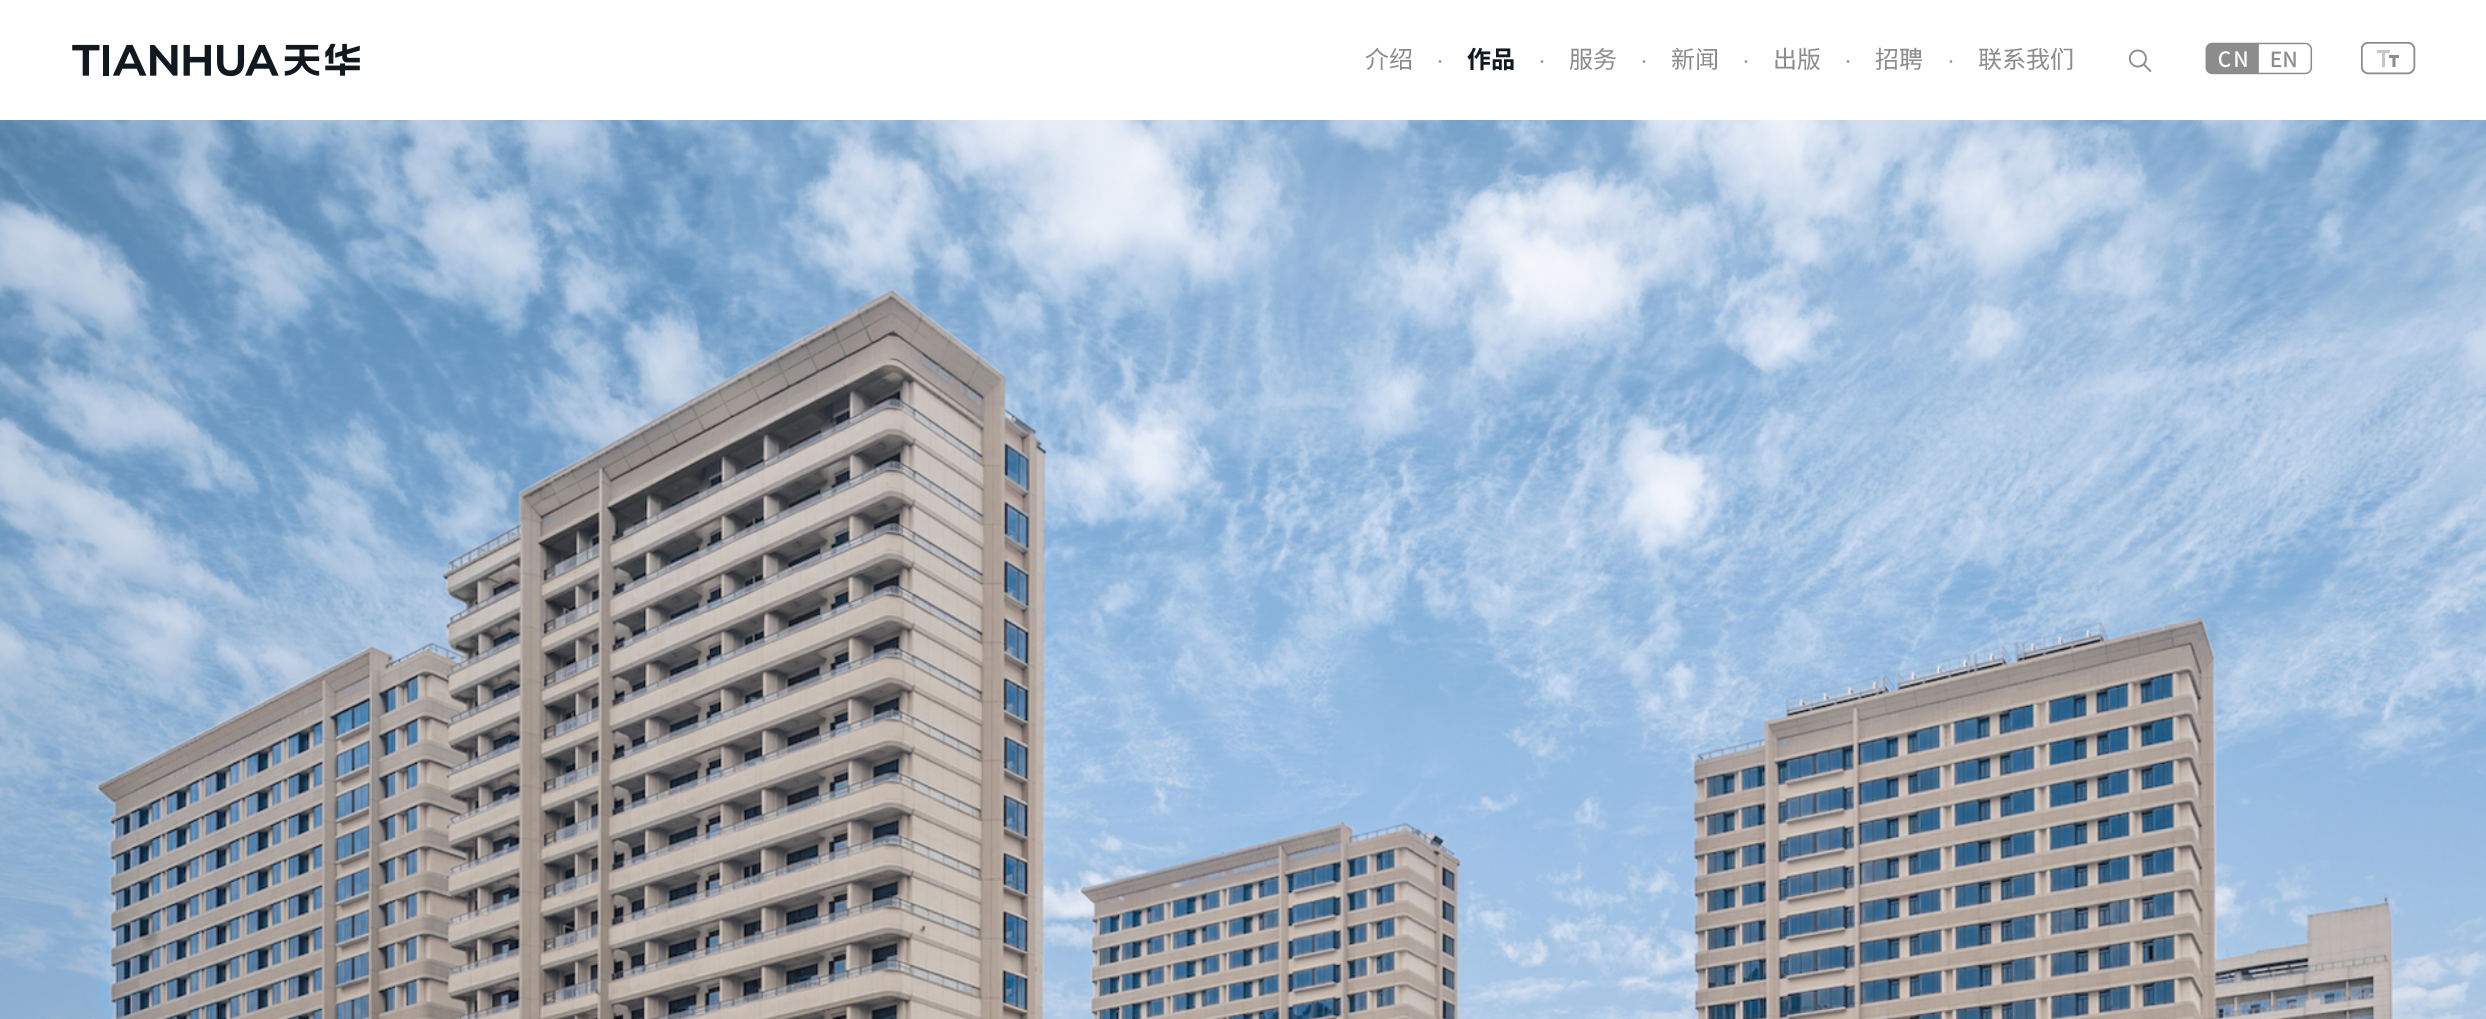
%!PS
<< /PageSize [2486 1019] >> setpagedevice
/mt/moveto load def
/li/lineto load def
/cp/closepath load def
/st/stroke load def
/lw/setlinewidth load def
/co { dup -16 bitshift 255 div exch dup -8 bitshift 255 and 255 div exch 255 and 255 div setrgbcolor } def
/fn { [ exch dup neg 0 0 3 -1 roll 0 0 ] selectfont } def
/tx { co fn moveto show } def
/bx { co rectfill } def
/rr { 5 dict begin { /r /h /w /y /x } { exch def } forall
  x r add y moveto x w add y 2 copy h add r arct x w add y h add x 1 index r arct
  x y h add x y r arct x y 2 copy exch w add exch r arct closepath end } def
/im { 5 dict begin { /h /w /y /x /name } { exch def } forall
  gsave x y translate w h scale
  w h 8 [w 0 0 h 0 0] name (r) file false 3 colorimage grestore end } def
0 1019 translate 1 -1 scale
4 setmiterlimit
0 0 2486 1019 16#FFFFFF bx
(media/1.raw) 72 43 288 34 im
(media/2.raw) 2128 49 24 23 im
(media/3.raw) 2205 42 108 33 im
16#8C8C8C co
1.5 lw
2361.75 42.75 52.5 30.5 6.25 rr st
16#C6C6C6 co
2377 53 mt 2377 50 li 2390 50 li 2390 53 li cp 2385 67 mt 2382 67 li 2382 53 li 2385 53 li cp eofill
16#8C8C8C co
2395.5 58 mt 2395.5 67 li 2392.5 67 li 2392.5 58 li 2389 58 li 2389 55 li 2399 55 li 2399 58 li cp eofill
(media/4.raw) 0 120 2486 899 im
(介绍) 1365 68 /NotoSansCJKSC-Regular 24 16#8C8C8C tx
(·) 1437 68 /Montserrat-Regular 24 16#8C8C8C tx
(作品) 1467 68 /NotoSansCJKSC-Bold 24 16#101820 tx
(·) 1539 68 /Montserrat-Regular 24 16#8C8C8C tx
(服务) 1569 68 /NotoSansCJKSC-Regular 24 16#8C8C8C tx
(·) 1641 68 /Montserrat-Regular 24 16#8C8C8C tx
(新闻) 1671 68 /NotoSansCJKSC-Regular 24 16#8C8C8C tx
(·) 1743 68 /Montserrat-Regular 24 16#8C8C8C tx
(出版) 1773 68 /NotoSansCJKSC-Regular 24 16#8C8C8C tx
(·) 1845 68 /Montserrat-Regular 24 16#8C8C8C tx
(招聘) 1875 68 /NotoSansCJKSC-Regular 24 16#8C8C8C tx
(·) 1948 68 /Montserrat-Regular 24 16#8C8C8C tx
(联系我们) 1978 68 /NotoSansCJKSC-Regular 24 16#8C8C8C tx
showpage
